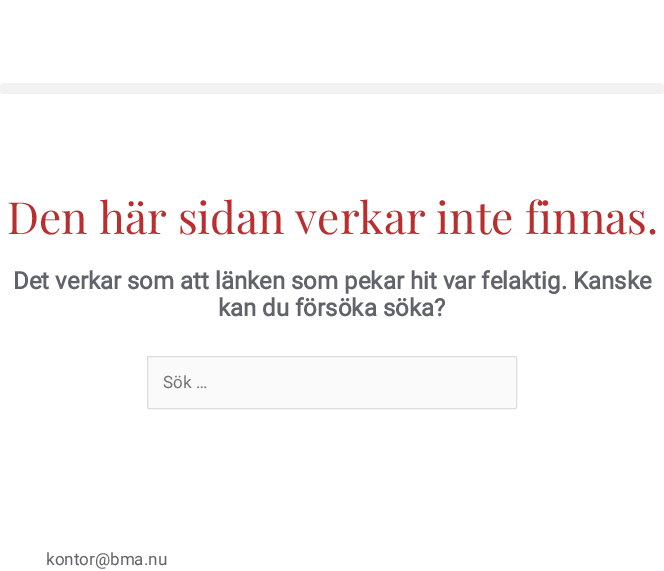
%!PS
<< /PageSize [664 571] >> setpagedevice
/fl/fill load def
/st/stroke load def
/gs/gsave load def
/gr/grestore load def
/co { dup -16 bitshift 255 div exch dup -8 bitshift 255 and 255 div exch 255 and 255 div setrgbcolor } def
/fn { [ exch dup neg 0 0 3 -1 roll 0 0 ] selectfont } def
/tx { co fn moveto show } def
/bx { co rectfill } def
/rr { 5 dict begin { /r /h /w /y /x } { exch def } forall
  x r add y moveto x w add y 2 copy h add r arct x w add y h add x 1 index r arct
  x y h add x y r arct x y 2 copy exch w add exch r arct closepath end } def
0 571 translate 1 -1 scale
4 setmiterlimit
0 0 664 571 16#FFFFFF bx
16#F2F2F2 co
0 83 664 11 3 rr fl
16#FAFAFA co
147.5 356.5 369 52 1.5 rr gs fl gr
16#DDDDDD co
st
(Den här sidan verkar inte finnas.) 7 234 /PlayfairDisplay-Regular 44.25 16#BA2E30 tx
(Det verkar som att länken som pekar hit var felaktig. Kanske) 13 289 /Roboto-Bold 24 16#61636B tx
(kan du försöka söka?) 218 316 /Roboto-Bold 24 16#61636B tx
(Sök …) 163 388 /Roboto-Regular 17 16#757575 tx
(kontor@bma.nu) 46 565 /Roboto-Regular 17 16#61636B tx
showpage
